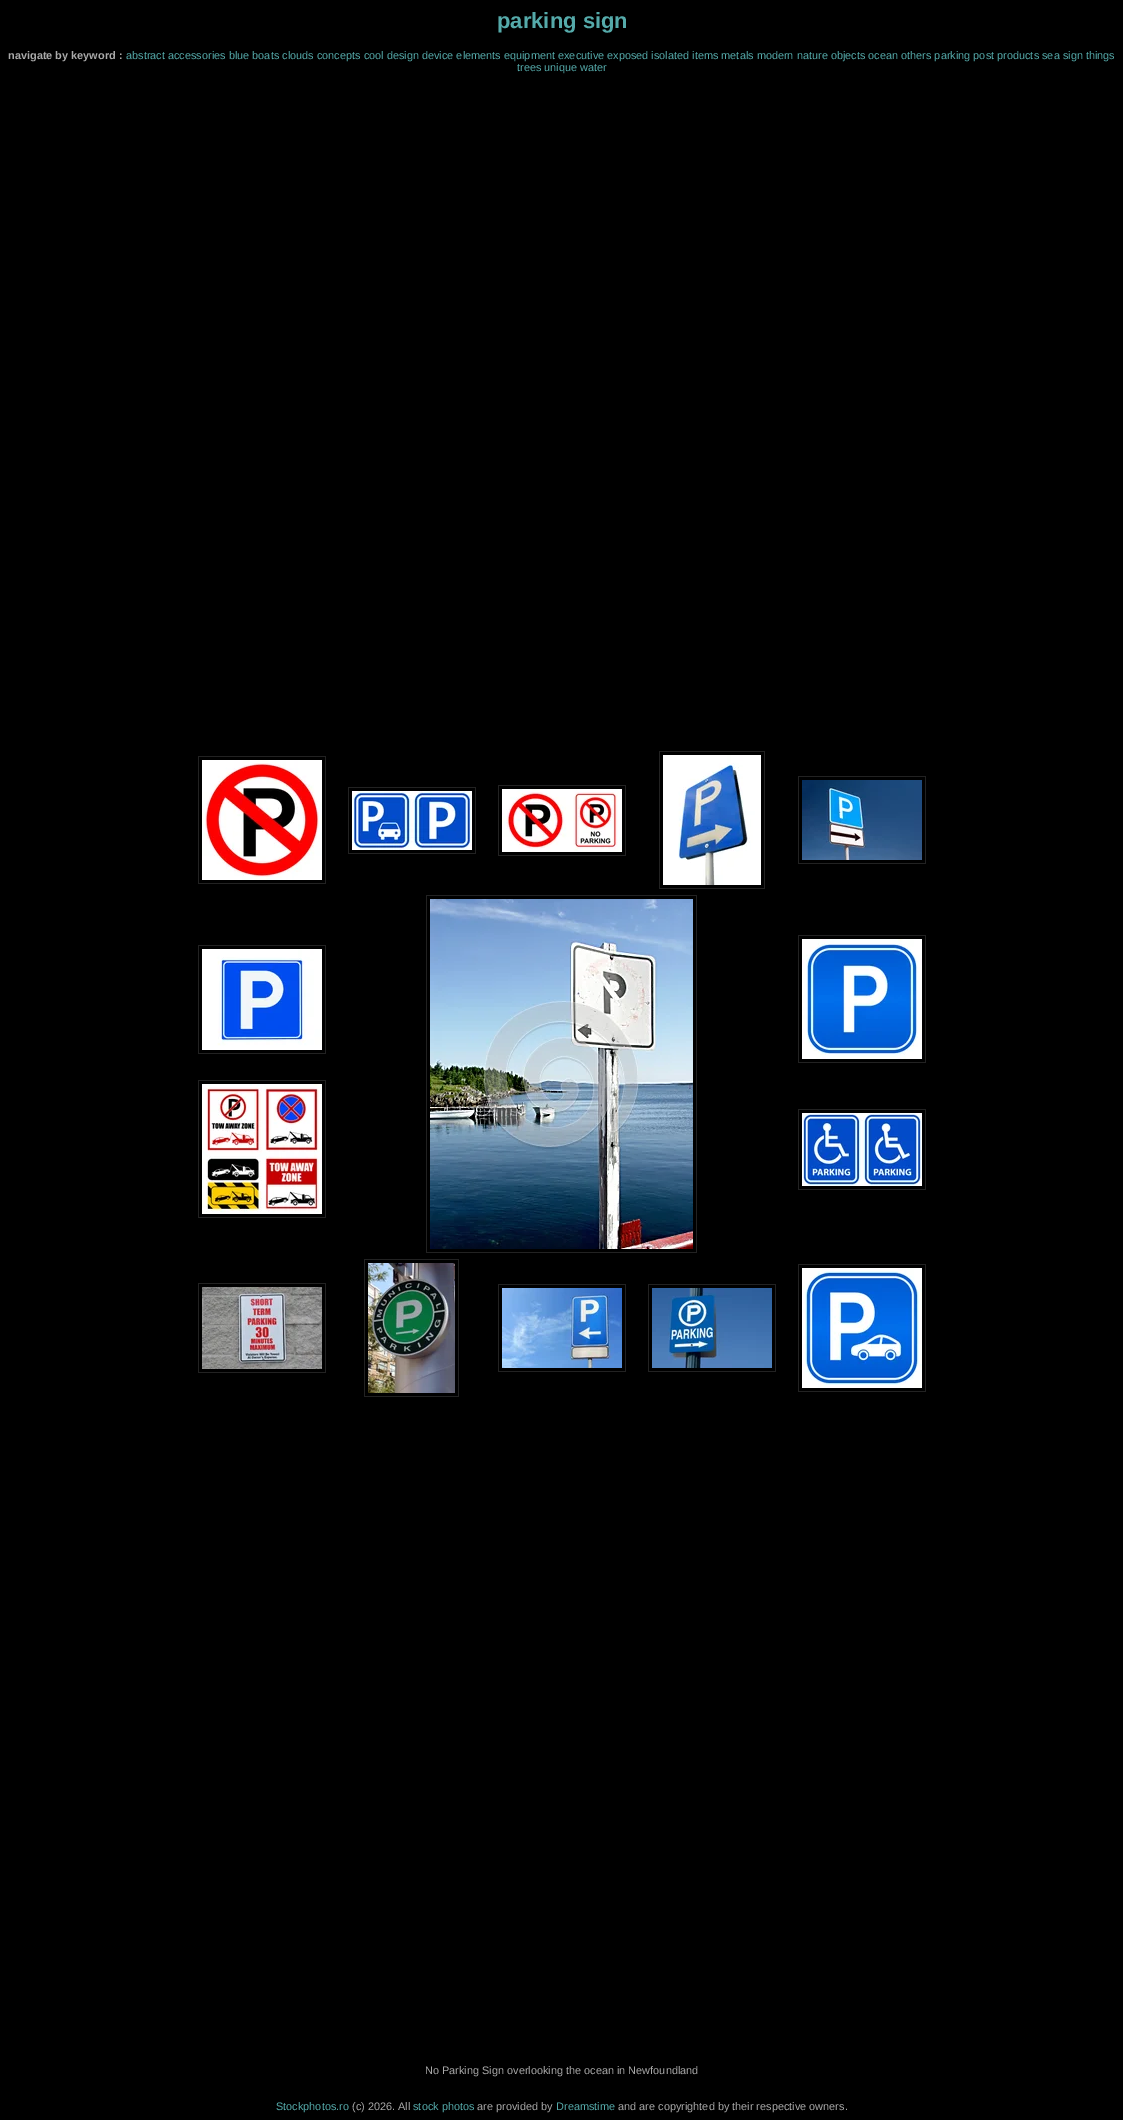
%!PS
<< /PageSize [1123 2120] >> setpagedevice
/co { dup -16 bitshift 255 div exch dup -8 bitshift 255 and 255 div exch 255 and 255 div setrgbcolor } def
/fn { [ exch dup neg 0 0 3 -1 roll 0 0 ] selectfont } def
/tx { co fn moveto show } def
/bx { co rectfill } def
/im { 5 dict begin { /h /w /y /x /name } { exch def } forall
  gsave x y translate w h scale
  w h 8 [w 0 0 h 0 0] name (r) file false 3 colorimage grestore end } def
0 2120 translate 1 -1 scale
4 setmiterlimit
0 0 1123 2120 16#000000 bx
198 756 128 128 16#222222 bx
199 757 126 126 16#000000 bx
(media/1.raw) 202 760 120 120 im
348 787 128 67 16#222222 bx
349 788 126 65 16#000000 bx
(media/2.raw) 352 791 120 59 im
498 785 128 71 16#222222 bx
499 786 126 69 16#000000 bx
(media/3.raw) 502 789 120 63 im
659 751 106 138 16#222222 bx
660 752 104 136 16#000000 bx
(media/4.raw) 663 755 98 130 im
798 776 128 88 16#222222 bx
799 777 126 86 16#000000 bx
(media/5.raw) 802 780 120 80 im
198 945 128 109 16#222222 bx
199 946 126 107 16#000000 bx
(media/6.raw) 202 949 120 101 im
198 1080 128 138 16#222222 bx
199 1081 126 136 16#000000 bx
(media/7.raw) 202 1084 120 130 im
426 895 271 358 16#222222 bx
427 896 269 356 16#000000 bx
(media/8.raw) 430 899 263 350 im
798 935 128 128 16#222222 bx
799 936 126 126 16#000000 bx
(media/9.raw) 802 939 120 120 im
798 1109 128 81 16#222222 bx
799 1110 126 79 16#000000 bx
(media/10.raw) 802 1113 120 73 im
198 1283 128 90 16#222222 bx
199 1284 126 88 16#000000 bx
(media/11.raw) 202 1287 120 82 im
364 1259 95 138 16#222222 bx
365 1260 93 136 16#000000 bx
(media/12.raw) 368 1263 87 130 im
498 1284 128 88 16#222222 bx
499 1285 126 86 16#000000 bx
(media/13.raw) 502 1288 120 80 im
648 1284 128 88 16#222222 bx
649 1285 126 86 16#000000 bx
(media/14.raw) 652 1288 120 80 im
798 1264 128 128 16#222222 bx
799 1265 126 126 16#000000 bx
(media/15.raw) 802 1268 120 120 im
(parking sign) 497 28 /LiberationSans-Bold 22 16#55AAAA tx
(navigate by keyword :) 8 59 /LiberationSans-Bold 10.93 16#AAAAAA tx
(abstract accessories blue boats clouds concepts cool design device elements equipment executive exposed isolated items metals modern nature objects ocean others parking post products sea sign things) 126 59 /LiberationSans-Regular 10.93 16#55AAAA tx
(trees unique water) 517 71 /LiberationSans-Regular 10.93 16#55AAAA tx
(No Parking Sign overlooking the ocean in Newfoundland) 425 2074 /LiberationSans-Regular 10.93 16#AAAAAA tx
(Stockphotos.ro) 276 2110 /LiberationSans-Regular 10.93 16#55AAAA tx
(\(c\) 2026. All) 352 2110 /LiberationSans-Regular 10.93 16#AAAAAA tx
(stock photos) 413 2110 /LiberationSans-Regular 10.93 16#55AAAA tx
(are provided by) 477 2110 /LiberationSans-Regular 10.93 16#AAAAAA tx
(Dreamstime) 556 2110 /LiberationSans-Regular 10.93 16#55AAAA tx
(and are copyrighted by their respective owners.) 618 2110 /LiberationSans-Regular 10.93 16#AAAAAA tx
showpage
